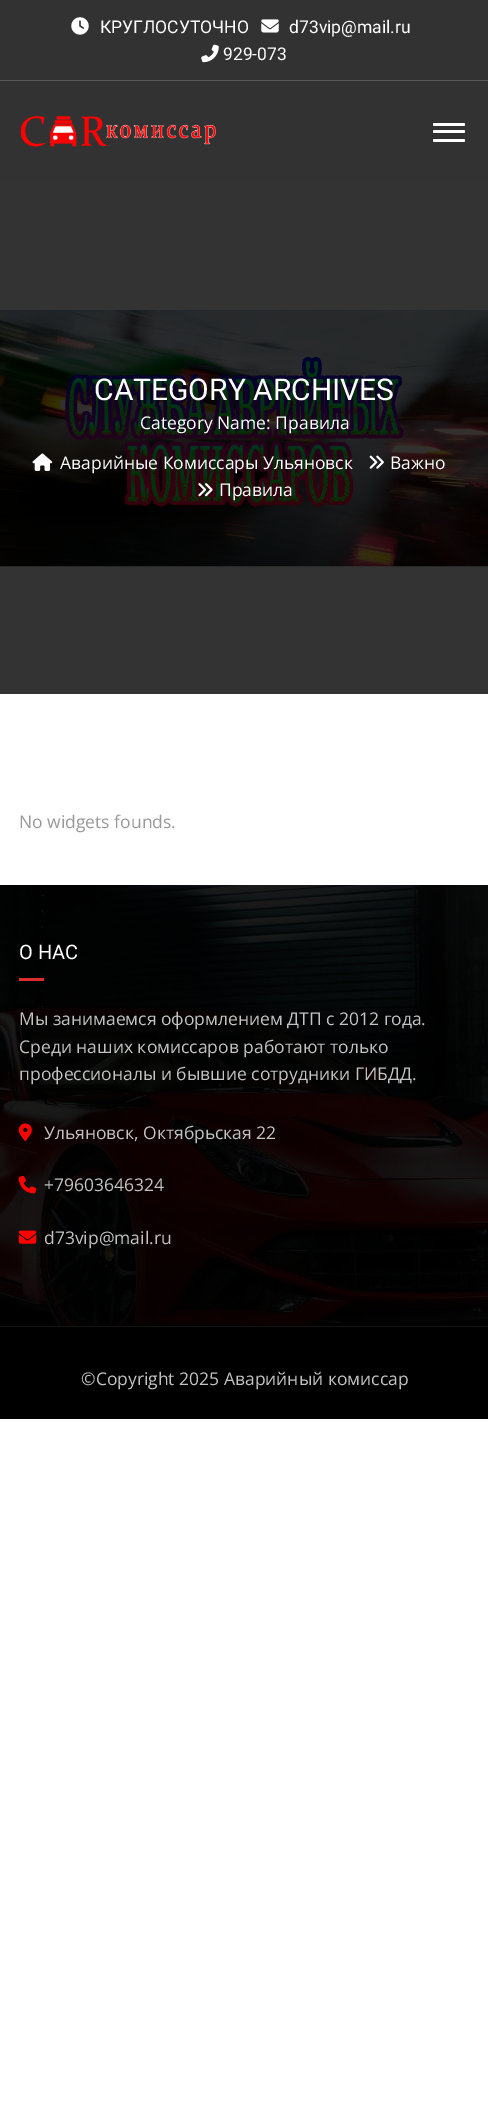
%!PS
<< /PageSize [488 2107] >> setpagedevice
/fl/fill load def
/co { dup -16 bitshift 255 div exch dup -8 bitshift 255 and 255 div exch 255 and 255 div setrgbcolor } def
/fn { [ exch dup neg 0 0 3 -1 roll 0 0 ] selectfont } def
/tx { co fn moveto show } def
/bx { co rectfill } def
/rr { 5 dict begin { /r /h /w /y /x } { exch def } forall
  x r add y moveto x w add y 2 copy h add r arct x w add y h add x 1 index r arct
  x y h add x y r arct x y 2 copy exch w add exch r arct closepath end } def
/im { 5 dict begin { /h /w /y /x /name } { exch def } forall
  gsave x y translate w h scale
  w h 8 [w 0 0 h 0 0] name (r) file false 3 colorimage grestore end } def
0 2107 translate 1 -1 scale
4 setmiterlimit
0 0 488 2107 16#FFFFFF bx
0 181 488 513 16#333333 bx
0 0 488 181 16#323232 bx
0 80 488 1 16#5B5B5B bx
(media/1.raw) 71 17 18 18 im
(media/2.raw) 261 19 18 14 im
(media/3.raw) 201 44 18 19 im
(media/4.raw) 20 115 196 32 im
16#FFFFFF co
433 123 32 3 1.5 rr fl
433 130 32 3 1.5 rr fl
433 139 32 3 1.5 rr fl
(media/5.raw) 0 310 488 257 im
(media/6.raw) 32 453 21 18 im
(media/7.raw) 369 455 15 14 im
(media/8.raw) 198 483 15 14 im
(media/9.raw) 0 885 488 441 im
19 978 25 3 16#DB2D2E bx
(media/10.raw) 18 1123 14 18 im
(media/11.raw) 18 1175 19 19 im
(media/12.raw) 18 1230 19 14 im
0 1327 488 92 16#000000 bx
0 1326 488 1 16#141414 bx
(КРУГЛОСУТОЧНО) 100 33 /Roboto-Regular 17.5 16#FFFFFF tx
(d73vip@mail.ru) 289 33 /Roboto-Regular 17.5 16#FFFFFF tx
(929-073) 223 60 /Roboto-Regular 17.5 16#FFFFFF tx
(CATEGORY ARCHIVES) 94 400 /Roboto-Regular 30 16#FFFFFF tx
(Category Name: Правила) 140 429 /OpenSans-Regular 17.5 16#FFFFFF tx
(Аварийные Комиссары Ульяновск) 60 469 /OpenSans-Regular 17.5 16#FFFFFF tx
(Важно) 390 469 /OpenSans-Regular 17.5 16#FFFFFF tx
(Правила) 219 496 /OpenSans-Regular 17.5 16#FFFFFF tx
(No widgets founds.) 19 828 /OpenSans-Regular 17.5 16#999999 tx
(О НАС) 19 959 /Roboto-Regular 20 16#FFFFFF tx
(Мы занимаемся оформлением ДТП с 2012 года.) 19 1025 /OpenSans-Regular 17.5 16#C4C3C3 tx
(Среди наших комиссаров работают только) 19 1053 /OpenSans-Regular 17.5 16#C4C3C3 tx
(профессионалы и бывшие сотрудники ГИБДД.) 19 1080 /OpenSans-Regular 17.5 16#C4C3C3 tx
(Ульяновск, Октябрьская 22) 44 1139 /OpenSans-Regular 17.5 16#C4C3C3 tx
(+79603646324) 44 1191 /OpenSans-Regular 17.5 16#C4C3C3 tx
(d73vip@mail.ru) 44 1244 /OpenSans-Regular 17.5 16#C4C3C3 tx
(©Copyright 2025 Аварийный комиссар) 81 1385 /OpenSans-Regular 17.5 16#C4C3C3 tx
showpage
